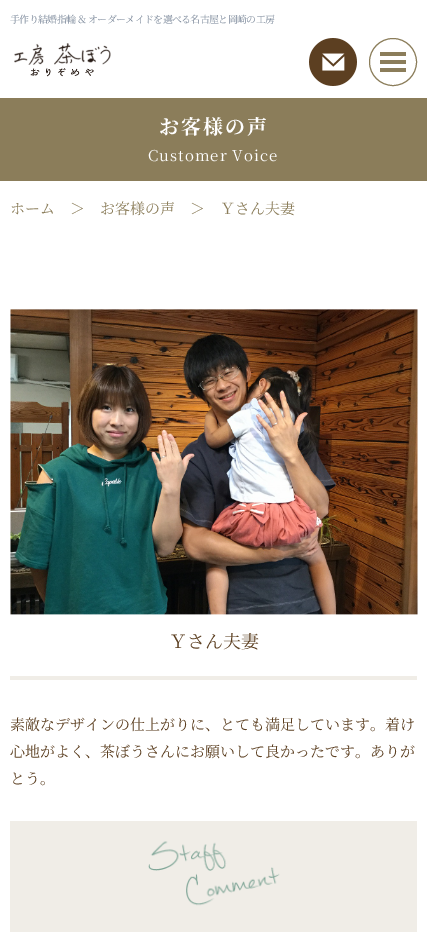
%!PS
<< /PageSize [427 932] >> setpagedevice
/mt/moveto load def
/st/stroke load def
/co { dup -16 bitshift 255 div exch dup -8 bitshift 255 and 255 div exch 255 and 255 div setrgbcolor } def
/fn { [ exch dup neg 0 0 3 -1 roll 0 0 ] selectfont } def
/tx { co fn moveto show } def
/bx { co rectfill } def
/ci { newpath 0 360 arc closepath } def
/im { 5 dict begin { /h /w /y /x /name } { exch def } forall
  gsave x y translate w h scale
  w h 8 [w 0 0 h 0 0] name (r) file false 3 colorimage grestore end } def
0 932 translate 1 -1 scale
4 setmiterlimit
0 0 427 932 16#FFFFFF bx
(media/1.raw) 14 43 97 34 im
(media/2.raw) 309 38 48 48 im
16#8B7D5A co
393 62 23.5 ci st
380 60 26 4 16#8B7D5A bx
380 52 26 4 16#8B7D5A bx
380 68 26 4 16#8B7D5A bx
0 98 427 83 16#8B7D5A bx
(media/3.raw) 10 309 408 306 im
10 676 407 4 16#F0EDE7 bx
10 821 407 111 16#F0EDE7 bx
(media/4.raw) 148 841 132 65 im
/NotoSerifJP-Regular 10 fn
16#7A8799 co
10 23 mt -.7 0 (手作り結婚指輪 ＆ オーダーメイドを選べる名古屋と岡崎の工房) ashow
/NotoSerifJP-Bold 20 fn
16#FFFFFF co
159 134 mt 2 0 (お客様の声) ashow
/NotoSerifJP-Regular 15 fn
148 161 mt 1 0 (Customer Voice) ashow
(ホーム) 10 214 /NotoSerifJP-Regular 15 16#8B7D5A tx
(＞) 70 214 /NotoSerifJP-Regular 15 16#8B7D5A tx
(お客様の声) 100 214 /NotoSerifJP-Regular 15 16#8B7D5A tx
(＞　Ｙさん夫妻) 190 214 /NotoSerifJP-Regular 15 16#8B7D5A tx
(Ｙさん夫妻) 169 648 /NotoSerifJP-Regular 18 16#5C3F21 tx
(素敵なデザインの仕上がりに、とても満足しています。着け) 10 730 /NotoSerifJP-Regular 15 16#5C3F21 tx
(心地がよく、茶ぼうさんにお願いして良かったです。ありが) 10 757 /NotoSerifJP-Regular 15 16#5C3F21 tx
(とう。) 10 784 /NotoSerifJP-Regular 15 16#5C3F21 tx
showpage
